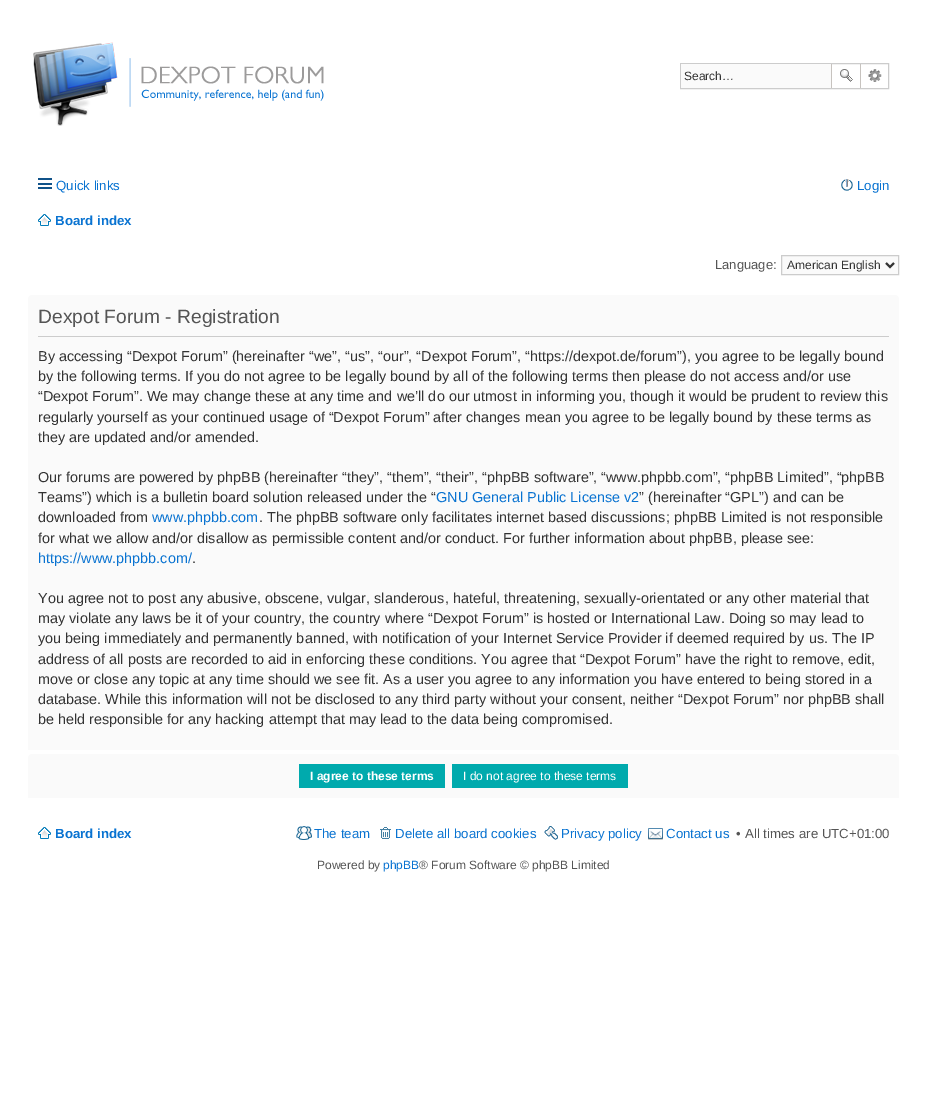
%!PS
<< /PageSize [927 1120] >> setpagedevice
/mt/moveto load def
/li/lineto load def
/ct/curveto load def
/cp/closepath load def
/fl/fill load def
/st/stroke load def
/gs/gsave load def
/gr/grestore load def
/lw/setlinewidth load def
/co { dup -16 bitshift 255 div exch dup -8 bitshift 255 and 255 div exch 255 and 255 div setrgbcolor } def
/fn { [ exch dup neg 0 0 3 -1 roll 0 0 ] selectfont } def
/tx { co fn moveto show } def
/bx { co rectfill } def
/im { 5 dict begin { /h /w /y /x /name } { exch def } forall
  gsave x y translate w h scale
  w h 8 [w 0 0 h 0 0] name (r) file false 3 colorimage grestore end } def
0 1120 translate 1 -1 scale
4 setmiterlimit
0 0 927 1120 16#FFFFFF bx
(media/1.raw) 33 42 291 84 im
16#CCCCCC co
680.5 63.5 208 25 rectstroke
681 64 150 24 16#FAFAFA bx
860 64 1 24 16#C7C3BF bx
831 64 1 24 16#C7C3BF bx
(media/2.raw) 840 69 13 13 im
(media/3.raw) 868 69 14 13 im
38 178 14 2 16#105289 bx
38 183 14 2 16#105289 bx
38 187 14 2 16#105289 bx
(media/4.raw) 841 179 12 12 im
(media/5.raw) 38 214 13 12 im
16#FAFAFA co
781.5 255.5 mt 898.5 255.5 li 898.5 274.5 li 781.5 274.5 li cp gs fl gr
16#CCCCCC co
st
16#333333 co
2 lw
886 263 mt 890 267 li 894 263 li st
16#FAFAFA co
32 295 mt 895 295 li 897 295 899 297 899 299 ct 899 750 li 28 750 li 28 299 li 28 297 30 295 32 295 ct cp fl
38 336 851 1 16#CCCCCC bx
16#FAFAFA co
32 754 mt 895 754 li 897 754 899 756 899 758 ct 899 798 li 28 798 li 28 758 li 28 756 30 754 32 754 ct cp fl
299 764 146 24 16#00AAAD bx
452 764 176 24 16#00AAAD bx
(media/5.raw) 38 827 13 12 im
(media/6.raw) 296 826 16 14 im
(media/7.raw) 380 827 11 12 im
(media/8.raw) 544 826 14 14 im
(media/9.raw) 648 828 15 12 im
(Search…) 684 80 /LiberationSans-Regular 12 16#333333 tx
(Quick links) 56 190 /LiberationSans-Regular 13.25 16#0973D1 tx
(Login) 857 190 /LiberationSans-Regular 13.25 16#0973D1 tx
(Board index) 55 225 /LiberationSans-Bold 13.25 16#0973D1 tx
(Language:) 715 269 /LiberationSans-Regular 13 16#555555 tx
(American English) 787 269 /LiberationSans-Regular 12 16#333333 tx
(Dexpot Forum - Registration) 38 323 /LiberationSans-Regular 19.25 16#555555 tx
(By accessing “Dexpot Forum” \(hereinafter “we”, “us”, “our”, “Dexpot Forum”, “https://dexpot.de/forum”\), you agree to be legally bound) 38 361 /LiberationSans-Regular 14.4 16#333333 tx
(by the following terms. If you do not agree to be legally bound by all of the following terms then please do not access and/or use) 38 381 /LiberationSans-Regular 14.4 16#333333 tx
(“Dexpot Forum”. We may change these at any time and we’ll do our utmost in informing you, though it would be prudent to review this) 38 401 /LiberationSans-Regular 14.4 16#333333 tx
(regularly yourself as your continued usage of “Dexpot Forum” after changes mean you agree to be legally bound by these terms as) 38 422 /LiberationSans-Regular 14.4 16#333333 tx
(they are updated and/or amended.) 38 442 /LiberationSans-Regular 14.4 16#333333 tx
(Our forums are powered by phpBB \(hereinafter “they”, “them”, “their”, “phpBB software”, “www.phpbb.com”, “phpBB Limited”, “phpBB) 38 482 /LiberationSans-Regular 14.4 16#333333 tx
(Teams”\) which is a bulletin board solution released under the “) 38 502 /LiberationSans-Regular 14.4 16#333333 tx
(GNU General Public License v2) 436 502 /LiberationSans-Regular 14.4 16#0973D1 tx
(” \(hereinafter “GPL”\) and can be) 639 502 /LiberationSans-Regular 14.4 16#333333 tx
(downloaded from) 38 522 /LiberationSans-Regular 14.4 16#333333 tx
(www.phpbb.com) 152 522 /LiberationSans-Regular 14.4 16#0973D1 tx
(. The phpBB software only facilitates internet based discussions; phpBB Limited is not responsible) 259 522 /LiberationSans-Regular 14.4 16#333333 tx
(for what we allow and/or disallow as permissible content and/or conduct. For further information about phpBB, please see:) 38 543 /LiberationSans-Regular 14.4 16#333333 tx
(https://www.phpbb.com/) 38 563 /LiberationSans-Regular 14.4 16#0973D1 tx
(.) 192 563 /LiberationSans-Regular 14.4 16#333333 tx
(You agree not to post any abusive, obscene, vulgar, slanderous, hateful, threatening, sexually-orientated or any other material that) 38 603 /LiberationSans-Regular 14.4 16#333333 tx
(may violate any laws be it of your country, the country where “Dexpot Forum” is hosted or International Law. Doing so may lead to) 38 623 /LiberationSans-Regular 14.4 16#333333 tx
(you being immediately and permanently banned, with notification of your Internet Service Provider if deemed required by us. The IP) 38 643 /LiberationSans-Regular 14.4 16#333333 tx
(address of all posts are recorded to aid in enforcing these conditions. You agree that “Dexpot Forum” have the right to remove, edit,) 38 664 /LiberationSans-Regular 14.4 16#333333 tx
(move or close any topic at any time should we see fit. As a user you agree to any information you have entered to being stored in a) 38 684 /LiberationSans-Regular 14.4 16#333333 tx
(database. While this information will not be disclosed to any third party without your consent, neither “Dexpot Forum” nor phpBB shall) 38 704 /LiberationSans-Regular 14.4 16#333333 tx
(be held responsible for any hacking attempt that may lead to the data being compromised.) 38 724 /LiberationSans-Regular 14.4 16#333333 tx
(I agree to these terms) 310 780 /LiberationSans-Bold 12 16#FFFFFF tx
(I do not agree to these terms) 463 780 /LiberationSans-Regular 12 16#FFFFFF tx
(Board index) 55 838 /LiberationSans-Bold 13.25 16#0973D1 tx
(The team) 314 838 /LiberationSans-Regular 13.25 16#0973D1 tx
(Delete all board cookies) 395 838 /LiberationSans-Regular 13.25 16#0973D1 tx
(Privacy policy) 561 838 /LiberationSans-Regular 13.25 16#0973D1 tx
(Contact us) 666 838 /LiberationSans-Regular 13.25 16#0973D1 tx
(•) 736 838 /LiberationSans-Regular 13.25 16#555555 tx
(All times are UTC+01:00) 745 838 /LiberationSans-Regular 13.25 16#555555 tx
(Powered by) 317 869 /LiberationSans-Regular 12 16#555555 tx
(phpBB) 383 869 /LiberationSans-Regular 12 16#0973D1 tx
(® Forum Software © phpBB Limited) 419 869 /LiberationSans-Regular 12 16#555555 tx
showpage
